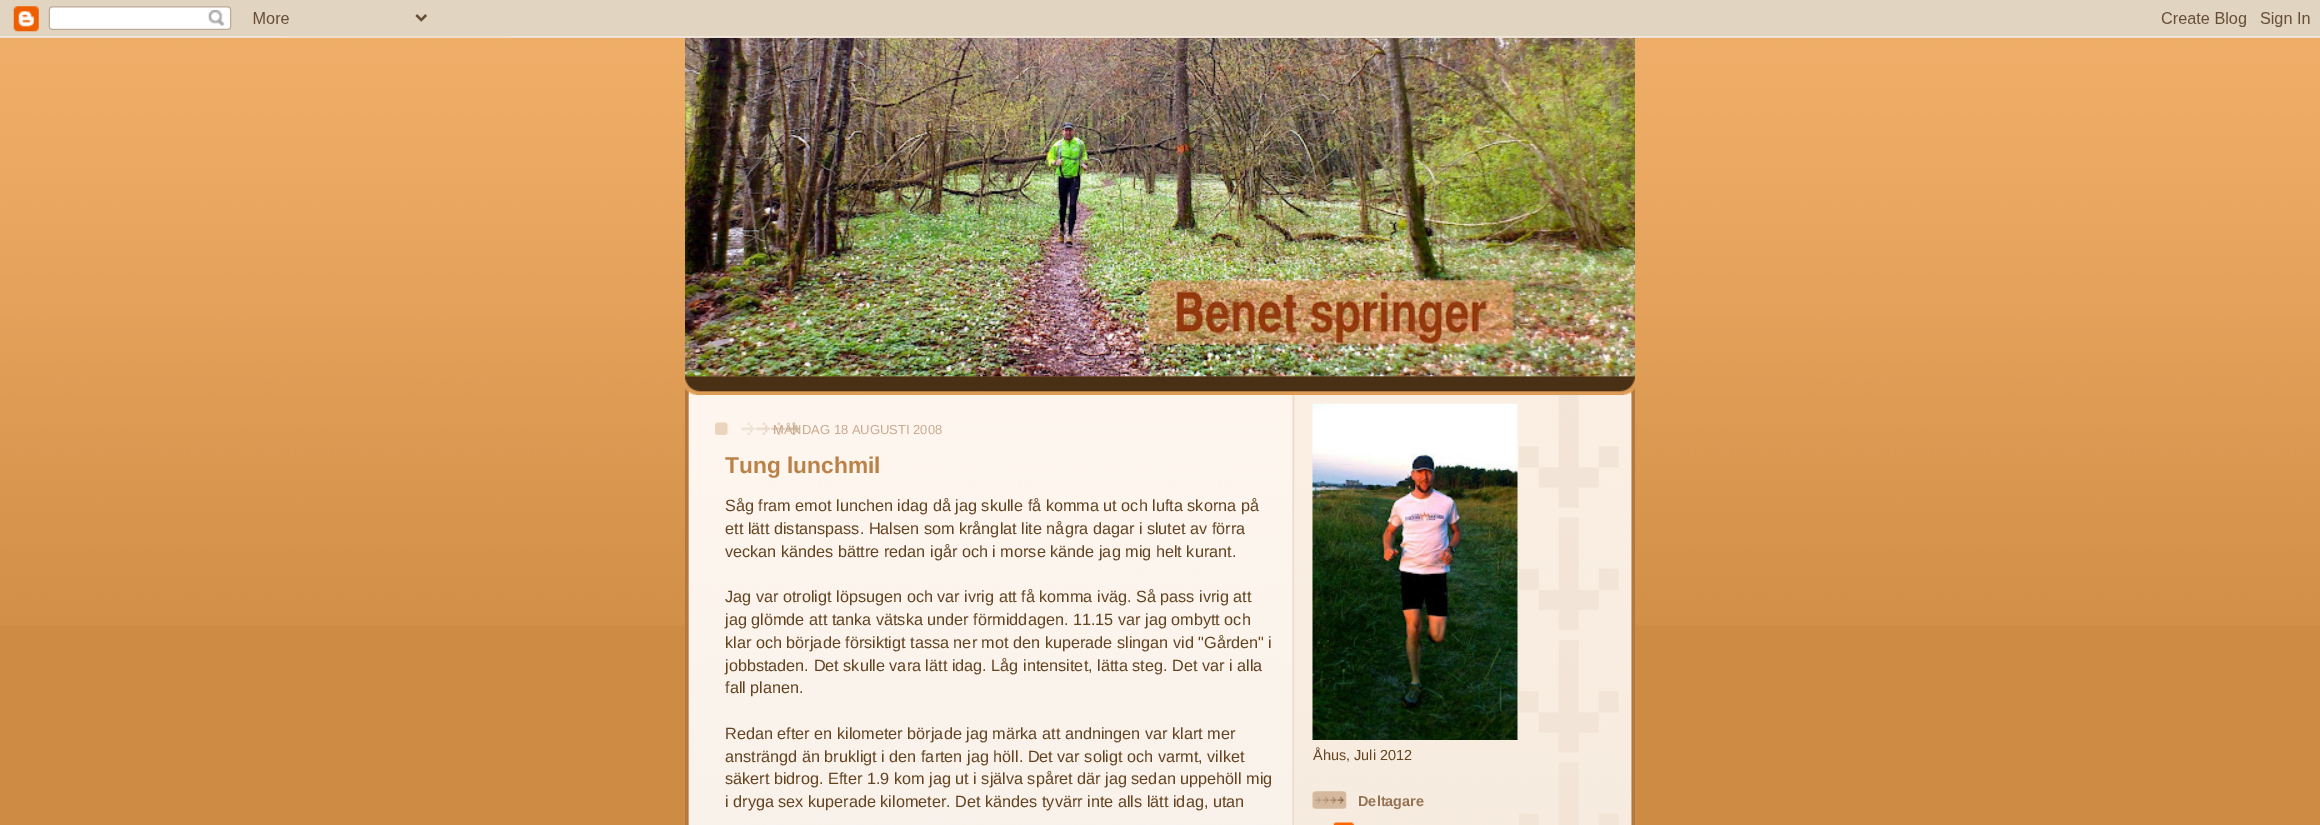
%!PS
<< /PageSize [2320 825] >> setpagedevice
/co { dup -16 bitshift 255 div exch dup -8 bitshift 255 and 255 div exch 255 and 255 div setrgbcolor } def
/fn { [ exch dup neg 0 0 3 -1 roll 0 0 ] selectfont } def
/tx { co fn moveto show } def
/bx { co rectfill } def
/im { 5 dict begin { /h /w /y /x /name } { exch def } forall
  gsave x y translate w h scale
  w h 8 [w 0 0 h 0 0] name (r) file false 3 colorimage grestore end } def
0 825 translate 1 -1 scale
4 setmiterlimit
0 0 2320 825 16#CE8B43 bx
(media/1.raw) 0 36 2320 590 im
(media/2.raw) 0 0 2320 38 im
(media/3.raw) 685 376 950 19 im
(media/4.raw) 685 376 950 1 im
(media/5.raw) 685 38 950 339 im
(media/6.raw) 685 395 950 430 im
(media/7.raw) 688 395 605 430 im
(media/8.raw) 715 422 13 13 im
(media/9.raw) 741 422 59 13 im
(media/10.raw) 1295 395 337 430 im
(media/11.raw) 1519 395 100 430 im
(media/12.raw) 1312 403 206 337 im
(media/13.raw) 1312 791 35 18 im
(media/14.raw) 1333 822 21 3 im
(MÅNDAG 18 AUGUSTI 2008) 773 434 /LiberationSans-Regular 13 16#C8AB8F tx
(Tung lunchmil) 725 473 /LiberationSans-Bold 22.75 16#BA8247 tx
(Såg fram emot lunchen idag då jag skulle få komma ut och lufta skorna på) 725 511 /LiberationSans-Regular 16.25 16#634320 tx
(ett lätt distanspass. Halsen som krånglat lite några dagar i slutet av förra) 725 534 /LiberationSans-Regular 16.25 16#634320 tx
(veckan kändes bättre redan igår och i morse kände jag mig helt kurant.) 725 557 /LiberationSans-Regular 16.25 16#634320 tx
(Jag var otroligt löpsugen och var ivrig att få komma iväg. Så pass ivrig att) 725 602 /LiberationSans-Regular 16.25 16#634320 tx
(jag glömde att tanka vätska under förmiddagen. 11.15 var jag ombytt och) 725 625 /LiberationSans-Regular 16.25 16#634320 tx
(klar och började försiktigt tassa ner mot den kuperade slingan vid "Gården" i) 725 648 /LiberationSans-Regular 16.25 16#634320 tx
(jobbstaden. Det skulle vara lätt idag. Låg intensitet, lätta steg. Det var i alla) 725 671 /LiberationSans-Regular 16.25 16#634320 tx
(fall planen.) 725 693 /LiberationSans-Regular 16.25 16#634320 tx
(Redan efter en kilometer började jag märka att andningen var klart mer) 725 739 /LiberationSans-Regular 16.25 16#634320 tx
(ansträngd än brukligt i den farten jag höll. Det var soligt och varmt, vilket) 725 762 /LiberationSans-Regular 16.25 16#634320 tx
(säkert bidrog. Efter 1.9 kom jag ut i själva spåret där jag sedan uppehöll mig) 725 784 /LiberationSans-Regular 16.25 16#634320 tx
(i dryga sex kuperade kilometer. Det kändes tyvärr inte alls lätt idag, utan) 725 807 /LiberationSans-Regular 16.25 16#634320 tx
(Åhus, Juli 2012) 1313 760 /LiberationSans-Regular 14.5 16#634320 tx
(Deltagare) 1358 806 /LiberationSans-Bold 14.5 16#957252 tx
showpage
